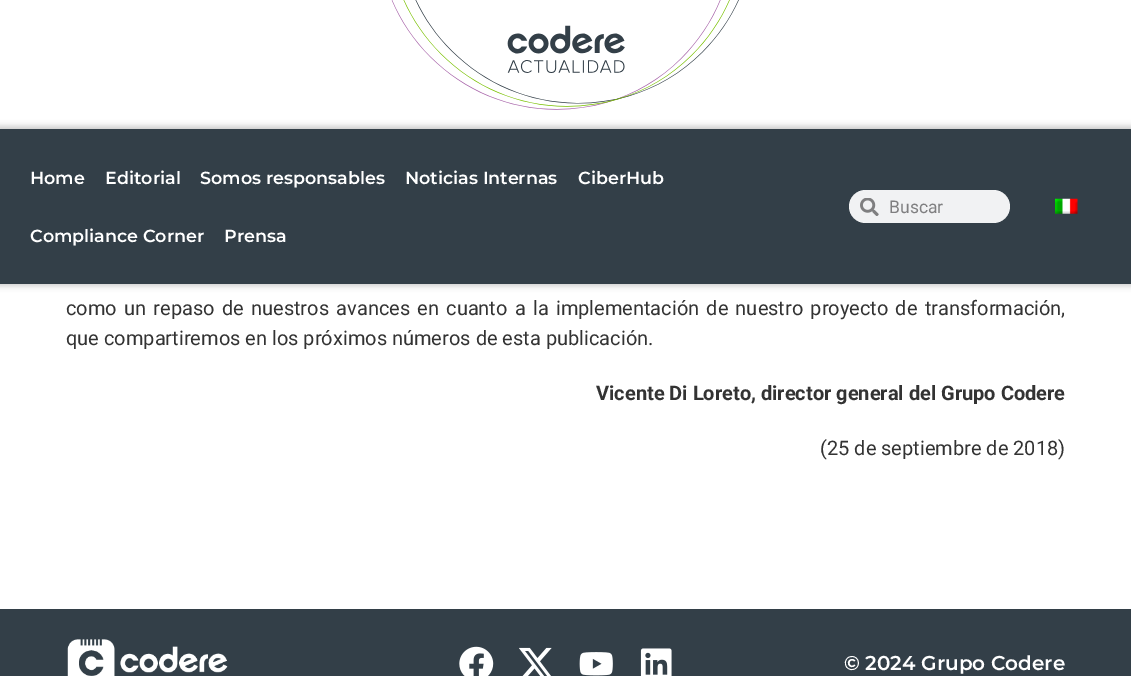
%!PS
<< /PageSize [1131 676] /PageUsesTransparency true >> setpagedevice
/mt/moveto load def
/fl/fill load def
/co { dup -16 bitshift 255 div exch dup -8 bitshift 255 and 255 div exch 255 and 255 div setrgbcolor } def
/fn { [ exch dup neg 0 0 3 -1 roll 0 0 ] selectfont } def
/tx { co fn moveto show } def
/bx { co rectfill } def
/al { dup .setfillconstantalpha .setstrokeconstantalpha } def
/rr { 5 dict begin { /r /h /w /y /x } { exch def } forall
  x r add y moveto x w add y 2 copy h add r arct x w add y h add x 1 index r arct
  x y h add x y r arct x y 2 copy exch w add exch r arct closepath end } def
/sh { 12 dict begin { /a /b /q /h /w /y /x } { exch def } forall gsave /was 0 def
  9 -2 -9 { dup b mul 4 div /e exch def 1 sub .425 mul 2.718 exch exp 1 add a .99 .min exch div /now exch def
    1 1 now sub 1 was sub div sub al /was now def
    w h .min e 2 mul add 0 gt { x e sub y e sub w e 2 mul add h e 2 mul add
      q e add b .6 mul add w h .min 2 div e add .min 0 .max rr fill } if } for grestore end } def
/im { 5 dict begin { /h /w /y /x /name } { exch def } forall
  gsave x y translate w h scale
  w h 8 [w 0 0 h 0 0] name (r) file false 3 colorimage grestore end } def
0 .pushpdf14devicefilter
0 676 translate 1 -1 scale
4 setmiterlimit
0 0 1131 676 16#FFFFFF bx
(media/1.raw) 391 0 348 110 im
16#000000 co
-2 126 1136 160 0 3 .2 sh
0 129 1131 155 16#333F48 bx
16#F1F2F3 co
849 190 161 33 16.5 rr fl
(media/2.raw) 860 198 19 18 im
(media/3.raw) 1055 198 23 16 im
0 609 1131 67 16#333F48 bx
(media/4.raw) 67 639 161 37 im
(media/5.raw) 459 646 35 30 im
(media/6.raw) 519 647 33 29 im
(media/7.raw) 579 652 34 24 im
(media/8.raw) 640 648 32 28 im
(Home) 30 184 /Montserrat-SemiBold 17.5 16#FFFFFF tx
(Editorial) 105 184 /Montserrat-SemiBold 17.5 16#FFFFFF tx
(Somos responsables) 200 184 /Montserrat-SemiBold 17.5 16#FFFFFF tx
(Noticias Internas) 405 184 /Montserrat-SemiBold 17.5 16#FFFFFF tx
(CiberHub) 578 184 /Montserrat-SemiBold 17.5 16#FFFFFF tx
(Compliance Corner) 30 242 /Montserrat-SemiBold 17.5 16#FFFFFF tx
(Prensa) 224 242 /Montserrat-SemiBold 17.5 16#FFFFFF tx
(Buscar) 889 213 /Roboto-Regular 17.5 16#7F7F80 tx
/Roboto-Regular 20 fn
16#333333 co
66 315 mt 2.25 0 32 (como un repaso de nuestros avances en cuanto a la implementación de nuestro proyecto de transformación,) widthshow
(que compartiremos en los próximos números de esta publicación.) 66 345 /Roboto-Regular 20 16#333333 tx
(Vicente Di Loreto, director general del Grupo Codere) 596 400 /Roboto-Bold 20 16#333333 tx
(\(25 de septiembre de 2018\)) 820 455 /Roboto-Regular 20 16#333333 tx
(© 2024 Grupo Codere) 844 670 /Montserrat-SemiBold 20 16#FFFFFF tx
.poppdf14devicefilter showpage
